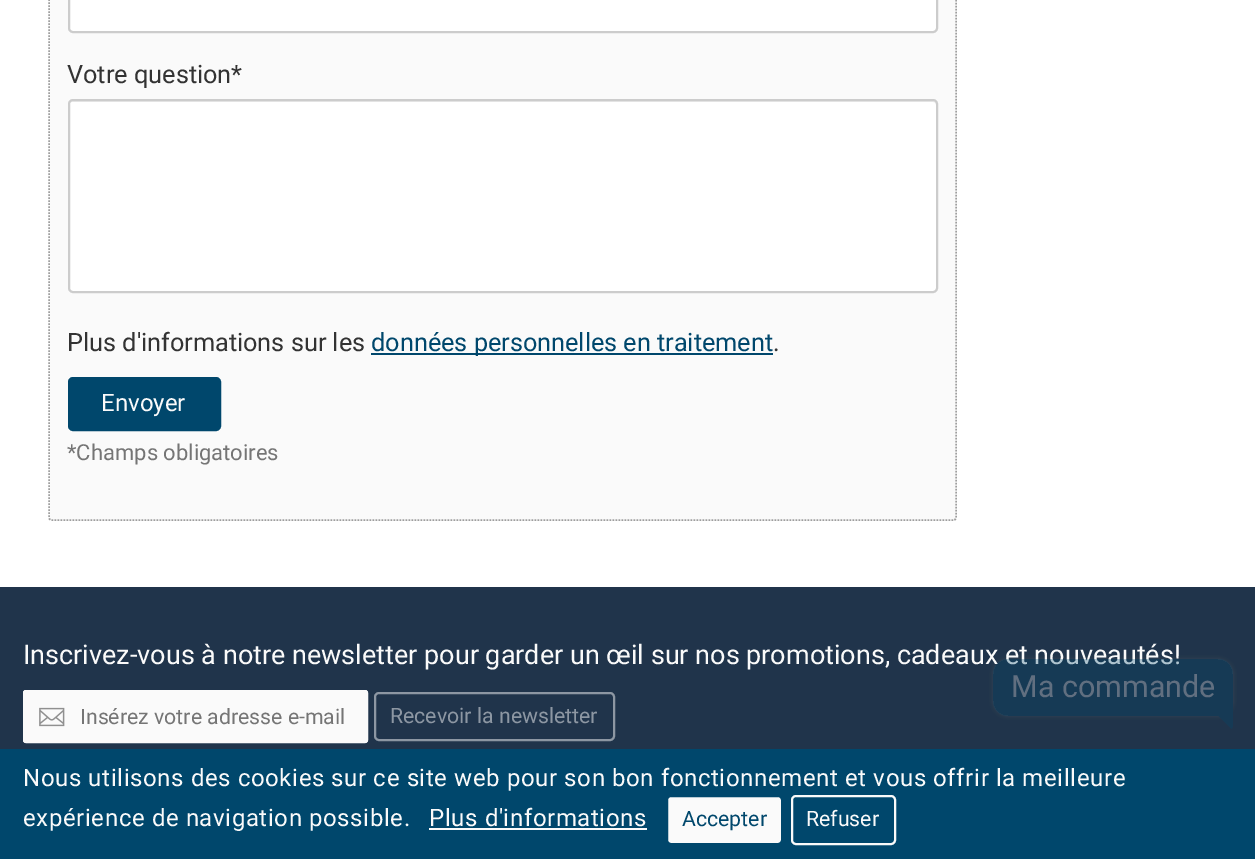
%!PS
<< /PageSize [1255 859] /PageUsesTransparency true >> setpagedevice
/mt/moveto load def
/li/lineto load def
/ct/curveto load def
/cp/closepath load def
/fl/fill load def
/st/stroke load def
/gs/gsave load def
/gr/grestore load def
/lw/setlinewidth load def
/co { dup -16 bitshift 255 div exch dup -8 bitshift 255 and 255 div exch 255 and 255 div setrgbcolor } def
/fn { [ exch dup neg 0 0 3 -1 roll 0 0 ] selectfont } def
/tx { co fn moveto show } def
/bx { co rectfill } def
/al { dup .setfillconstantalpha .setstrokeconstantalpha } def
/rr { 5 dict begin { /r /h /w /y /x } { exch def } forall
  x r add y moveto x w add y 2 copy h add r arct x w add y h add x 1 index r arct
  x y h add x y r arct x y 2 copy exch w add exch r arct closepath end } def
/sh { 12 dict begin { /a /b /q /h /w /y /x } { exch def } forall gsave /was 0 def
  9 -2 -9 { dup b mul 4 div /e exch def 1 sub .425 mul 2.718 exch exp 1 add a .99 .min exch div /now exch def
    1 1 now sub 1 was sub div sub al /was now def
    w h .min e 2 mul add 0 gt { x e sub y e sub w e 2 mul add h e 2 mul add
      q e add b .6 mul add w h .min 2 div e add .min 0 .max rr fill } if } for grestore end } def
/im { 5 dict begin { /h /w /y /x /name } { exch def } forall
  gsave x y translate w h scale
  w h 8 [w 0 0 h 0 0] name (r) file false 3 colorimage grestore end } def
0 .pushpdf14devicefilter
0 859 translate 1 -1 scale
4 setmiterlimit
0 0 1255 859 16#FFFFFF bx
16#FAFAFA co
48 -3 909 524 3 rr fl
16#9E9E9E co
1.5 lw
[1.5 1.5] 0 setdash
51 -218 mt 954 -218 li 955 -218 956 -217 956 -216 ct 956 517.5 li 956 518.5 955 520 954 520 ct 51 520 li 50 520 49 518.5 49 517.5 ct 49 -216 li 49 -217 50 -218 51 -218 ct cp st
16#FFFFFF co
69 -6 868 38 4 rr gs fl gr
16#CCCCCC co
2 lw
[] 0 setdash
st
16#FFFFFF co
68 99 870 194 5 rr fl
16#ECECEC co
72 102 mt 933 102 li 935 102 936 103 936 105 ct 936 103 935 101 933 101 ct 72 101 li 70 101 69 103 69 105 ct 69 103 70 102 72 102 ct cp fl
16#CCCCCC co
69 100 868 192 4 rr st
371 353 402 2 16#00476C bx
69 378 151 52 4 rr gs fl gr
st
0 587 1255 162 16#20344B bx
16#FAFAFA co
23 690 345 53 3 rr fl
(media/1.raw) 39 707 26 20 im
24 691 343 51 2 rr st
16#8D97A3 co
375 693 239 47 4 rr st
gs
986 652 mt 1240 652 li 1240 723 li 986 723 li cp 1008 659 mt 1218 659 li 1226.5 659 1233 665.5 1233 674 ct 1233 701 li 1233 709.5 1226.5 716 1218 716 ct 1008 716 li 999.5 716 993 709.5 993 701 ct 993 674 li 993 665.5 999.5 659 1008 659 ct cp eoclip newpath
16#757575 co
993 659 240 57 15 2 .27 sh
gr
0 749 1255 110 16#00476C bx
429 828 218 2 16#FAFAFA bx
667 796 115 48 4 rr gs fl gr
16#00476C co
st
16#FAFAFA co
792 796 103 48 4 rr st
(Votre question*) 67 83 /Roboto-Regular 25.25 16#333333 tx
(Plus d'informations sur les) 67 351 /Roboto-Regular 25.25 16#333333 tx
(données personnelles en traitement) 371 351 /Roboto-Regular 25.25 16#00476C tx
(.) 773 351 /Roboto-Regular 25.25 16#333333 tx
(Envoyer) 101 411 /Roboto-Regular 24 16#FAFAFA tx
(*Champs obligatoires) 67 460 /Roboto-Regular 22 16#757575 tx
(Inscrivez-vous à notre newsletter pour garder un œil sur nos promotions, cadeaux et nouveautés!) 23 664 /Roboto-Regular 27 16#FAFAFA tx
(Insérez votre adresse e-mail) 80 724 /Roboto-Regular 21.25 16#757575 tx
(Recevoir la newsletter) 390 723 /Roboto-Regular 21.25 16#8D97A3 tx
0.3 al
16#00476C co
993 659 240 57 15 rr fl
1 al
(Ma commande) 1011 697 /Roboto-Regular 30.5 16#616F80 tx
16#163A55 co
1233 701 mt 1203.5 701 li 1231.5 729 li 1232.5 728 1233 726.5 1233 725 ct cp fl
/Roboto-Regular 24 fn
16#FAFAFA co
23 786 mt .6 0 (Nous utilisons des cookies sur ce site web pour son bon fonctionnement et vous offrir la meilleure) ashow
23 826 mt .6 0 (expérience de navigation possible.) ashow
429 826 mt .6 0 (Plus d'informations) ashow
(Accepter) 682 826 /Roboto-Regular 21.25 16#00476C tx
(Refuser) 806 826 /Roboto-Regular 21.25 16#FAFAFA tx
.poppdf14devicefilter showpage
